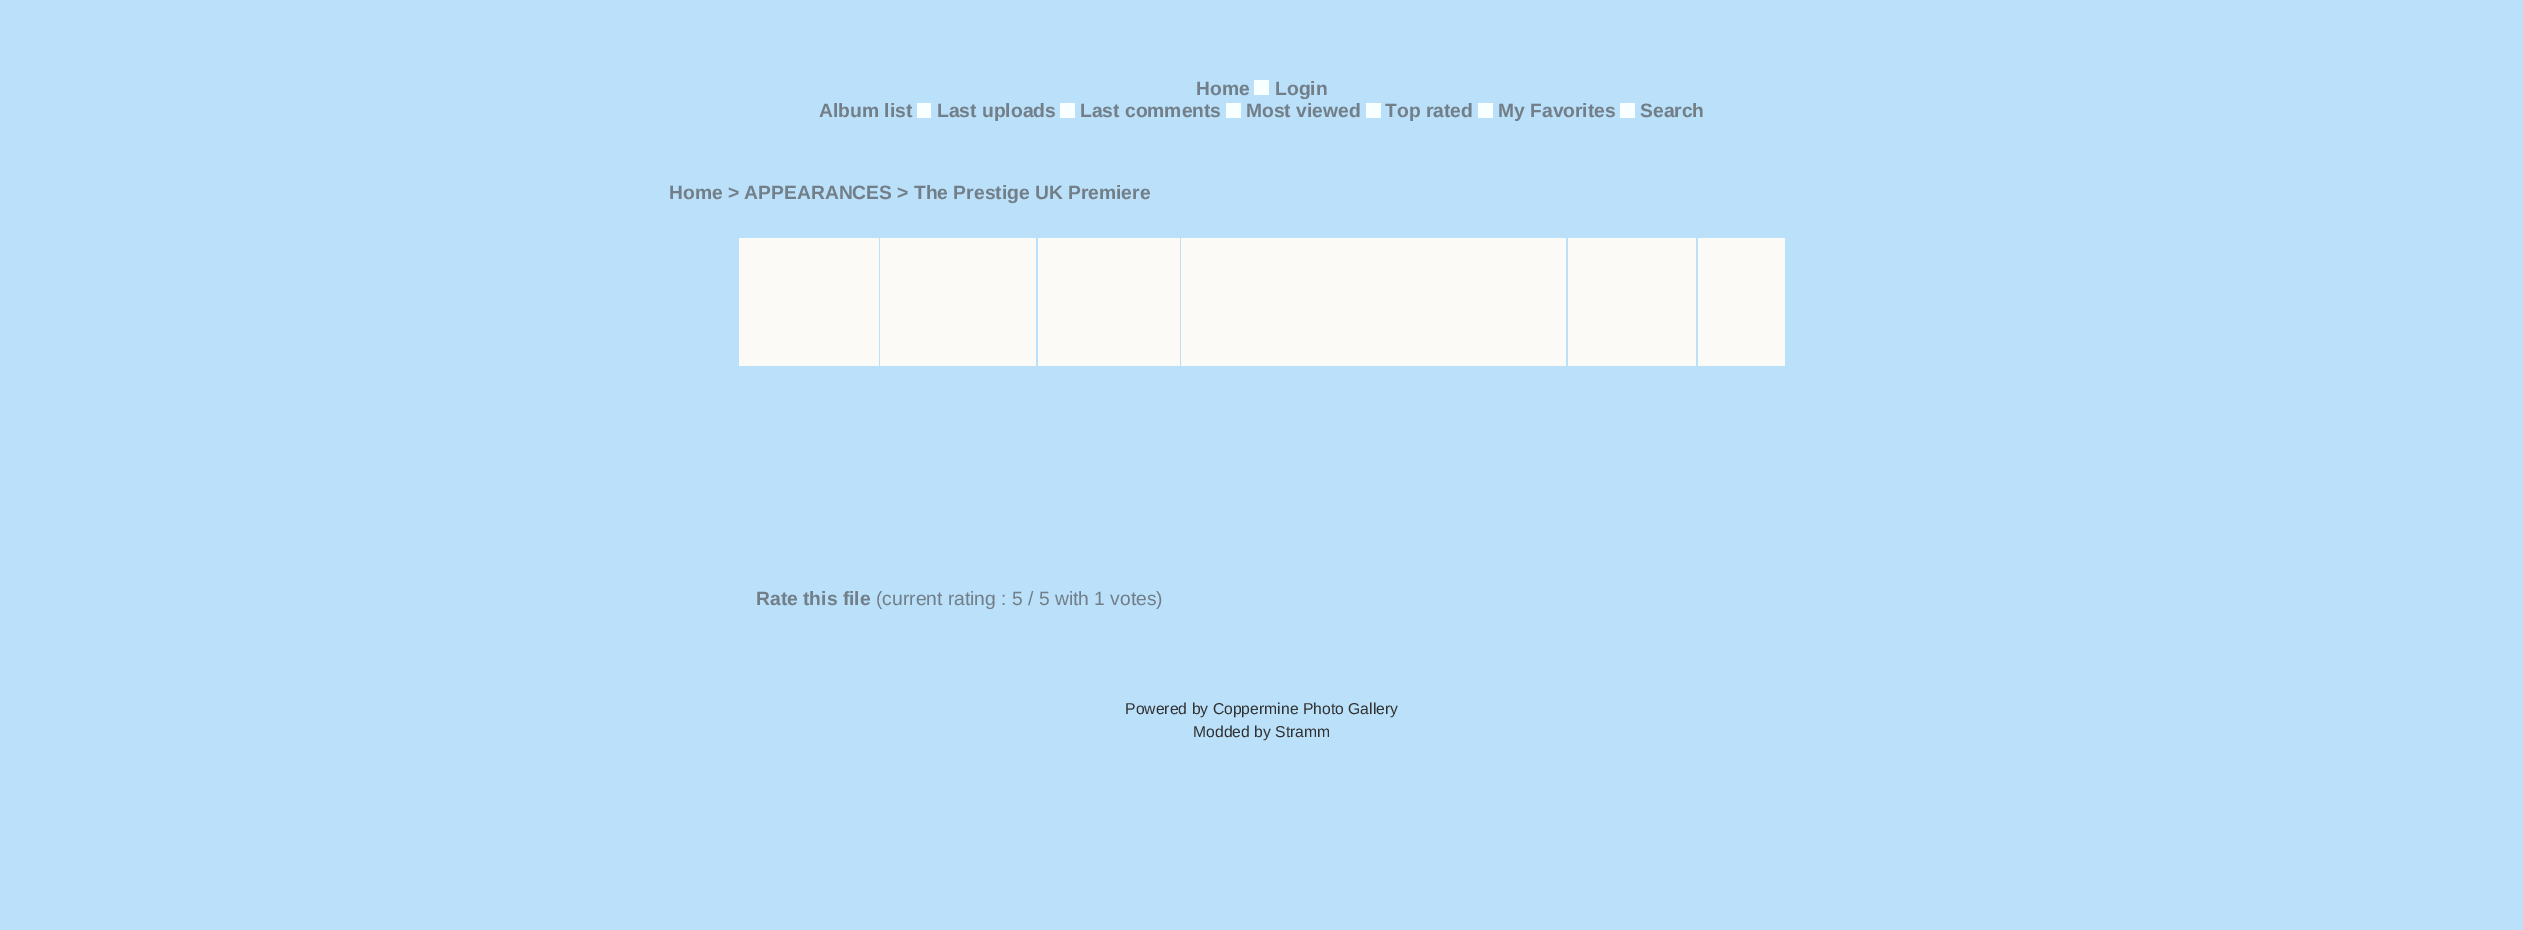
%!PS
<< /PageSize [2523 930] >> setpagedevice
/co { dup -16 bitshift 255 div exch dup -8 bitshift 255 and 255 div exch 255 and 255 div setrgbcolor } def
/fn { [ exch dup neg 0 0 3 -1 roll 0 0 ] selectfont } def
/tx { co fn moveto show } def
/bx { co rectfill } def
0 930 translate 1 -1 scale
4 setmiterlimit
0 0 2523 930 16#BAE0FA bx
1254 80 15 15 16#F7FFFF bx
917 103 14 15 16#F7FFFF bx
1060 103 15 15 16#F7FFFF bx
1226 103 15 15 16#F7FFFF bx
1366 103 15 15 16#F7FFFF bx
1478 103 15 15 16#F7FFFF bx
1620 103 15 15 16#F7FFFF bx
739 238 140 128 16#FBFAF6 bx
880 238 156 128 16#FBFAF6 bx
1038 238 142 128 16#FBFAF6 bx
1181 238 385 128 16#FBFAF6 bx
1568 238 128 128 16#FBFAF6 bx
1698 238 87 128 16#FBFAF6 bx
(Home) 1196 95 /LiberationSans-Bold 19.25 16#727E88 tx
(Login) 1275 95 /LiberationSans-Bold 19.25 16#727E88 tx
(Album list) 819 117 /LiberationSans-Bold 19.25 16#727E88 tx
(Last uploads) 937 117 /LiberationSans-Bold 19.25 16#727E88 tx
(Last comments) 1080 117 /LiberationSans-Bold 19.25 16#727E88 tx
(Most viewed) 1246 117 /LiberationSans-Bold 19.25 16#727E88 tx
(Top rated) 1385 117 /LiberationSans-Bold 19.25 16#727E88 tx
(My Favorites) 1498 117 /LiberationSans-Bold 19.25 16#727E88 tx
(Search) 1640 117 /LiberationSans-Bold 19.25 16#727E88 tx
(Home > APPEARANCES > The Prestige UK Premiere) 669 199 /LiberationSans-Bold 19.25 16#727E88 tx
(Rate this file) 756 605 /LiberationSans-Bold 19.25 16#727E88 tx
(\(current rating : 5 / 5 with 1 votes\)) 876 605 /LiberationSans-Regular 19.25 16#727E88 tx
(Powered by Coppermine Photo Gallery) 1125 714 /LiberationSans-Regular 15.75 16#313131 tx
(Modded by Stramm) 1193 737 /LiberationSans-Regular 15.75 16#313131 tx
showpage
